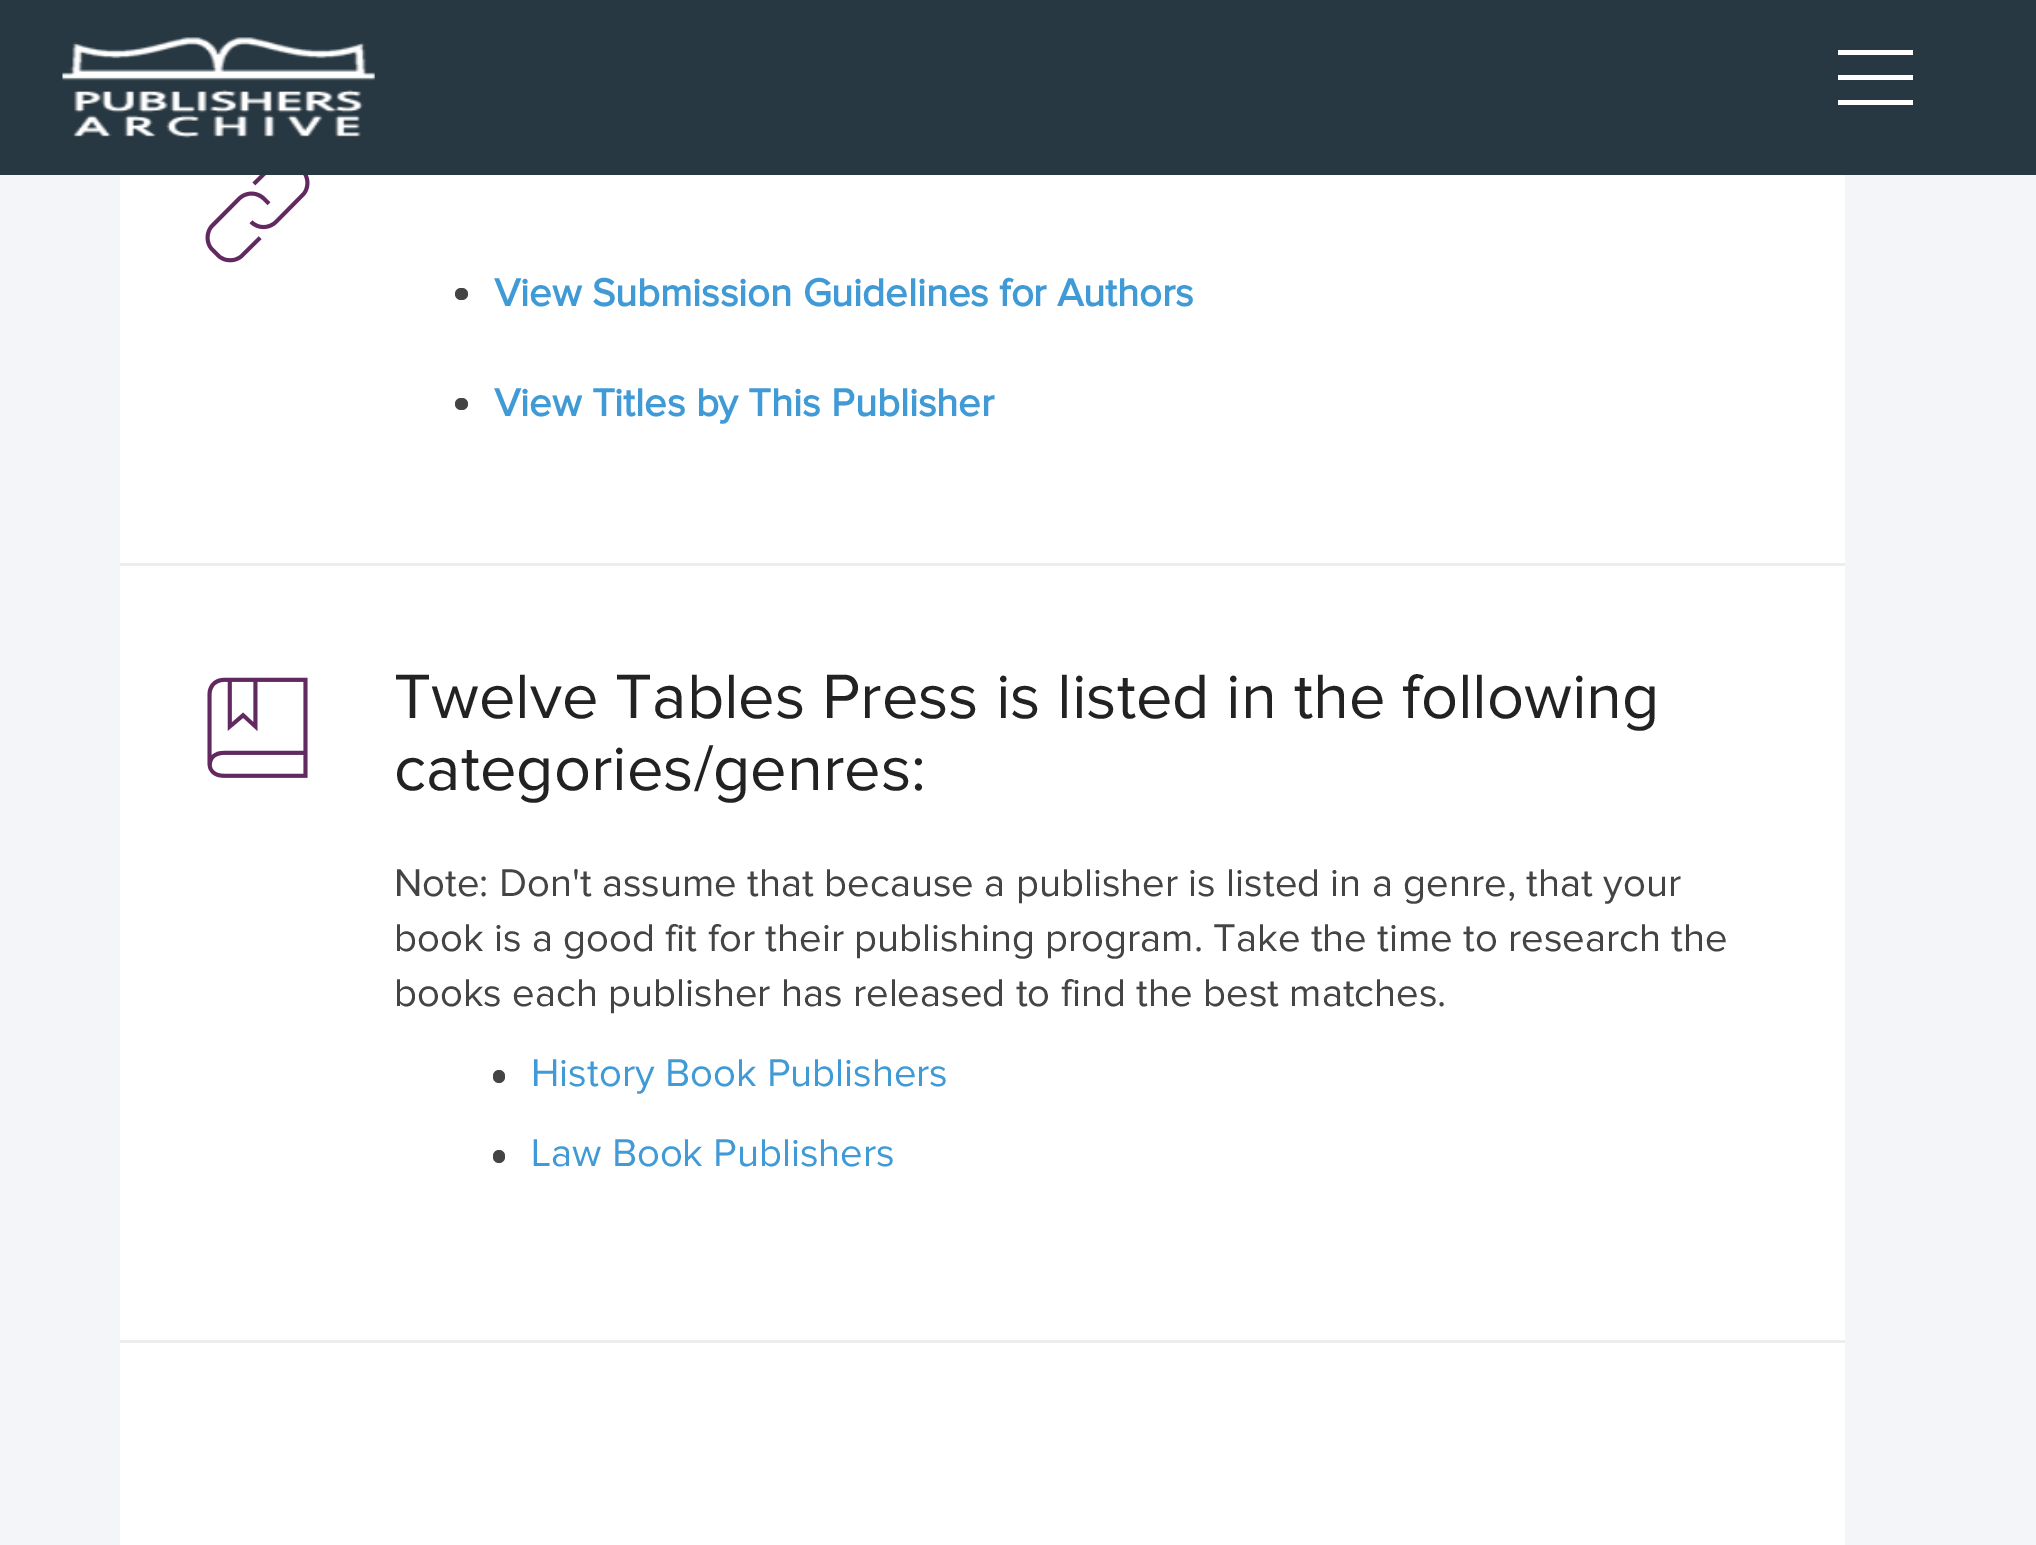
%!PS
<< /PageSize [2036 1545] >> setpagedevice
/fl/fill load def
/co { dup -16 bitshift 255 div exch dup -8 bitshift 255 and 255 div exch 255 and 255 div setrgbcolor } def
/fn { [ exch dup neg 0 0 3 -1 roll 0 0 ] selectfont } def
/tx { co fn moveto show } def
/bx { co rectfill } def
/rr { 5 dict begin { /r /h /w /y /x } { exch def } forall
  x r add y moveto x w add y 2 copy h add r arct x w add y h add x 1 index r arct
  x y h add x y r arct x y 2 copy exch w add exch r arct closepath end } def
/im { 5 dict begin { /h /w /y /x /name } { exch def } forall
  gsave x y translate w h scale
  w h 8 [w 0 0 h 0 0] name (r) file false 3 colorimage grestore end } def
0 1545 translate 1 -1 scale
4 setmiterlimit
0 0 2036 1545 16#F3F5F8 bx
0 0 2036 175 16#283842 bx
(media/1.raw) 62 37 313 101 im
1838 75 75 5 16#FFFFFF bx
1838 50 75 5 16#FFFFFF bx
1838 100 75 5 16#FFFFFF bx
120 175 1725 1370 16#FFFFFF bx
(media/2.raw) 205 175 105 88 im
16#444444 co
455 288 13 12 6 rr fl
455 398 13 12 6 rr fl
120 563 1725 3 16#EDEDED bx
(media/3.raw) 207 677 101 101 im
16#444444 co
493 1070 12 13 6 rr fl
493 1150 12 13 6 rr fl
120 1340 1725 3 16#EDEDED bx
(View Submission Guidelines for Authors) 494 306 /ProximaNova-Bold 40 16#3F9AD6 tx
(View Titles by This Publisher) 494 416 /ProximaNova-Bold 40 16#3F9AD6 tx
(Twelve Tables Press is listed in the following) 394 718 /ProximaNova-Regular 65 16#222222 tx
(categories/genres:) 394 790 /ProximaNova-Regular 65 16#222222 tx
(Note: Don't assume that because a publisher is listed in a genre, that your) 394 896 /ProximaNova-Regular 40 16#444444 tx
(book is a good fit for their publishing program. Take the time to research the) 394 951 /ProximaNova-Regular 40 16#444444 tx
(books each publisher has released to find the best matches.) 394 1006 /ProximaNova-Regular 40 16#444444 tx
(History Book Publishers) 531 1086 /ProximaNova-Regular 40 16#3F9AD6 tx
(Law Book Publishers) 531 1166 /ProximaNova-Regular 40 16#3F9AD6 tx
showpage
